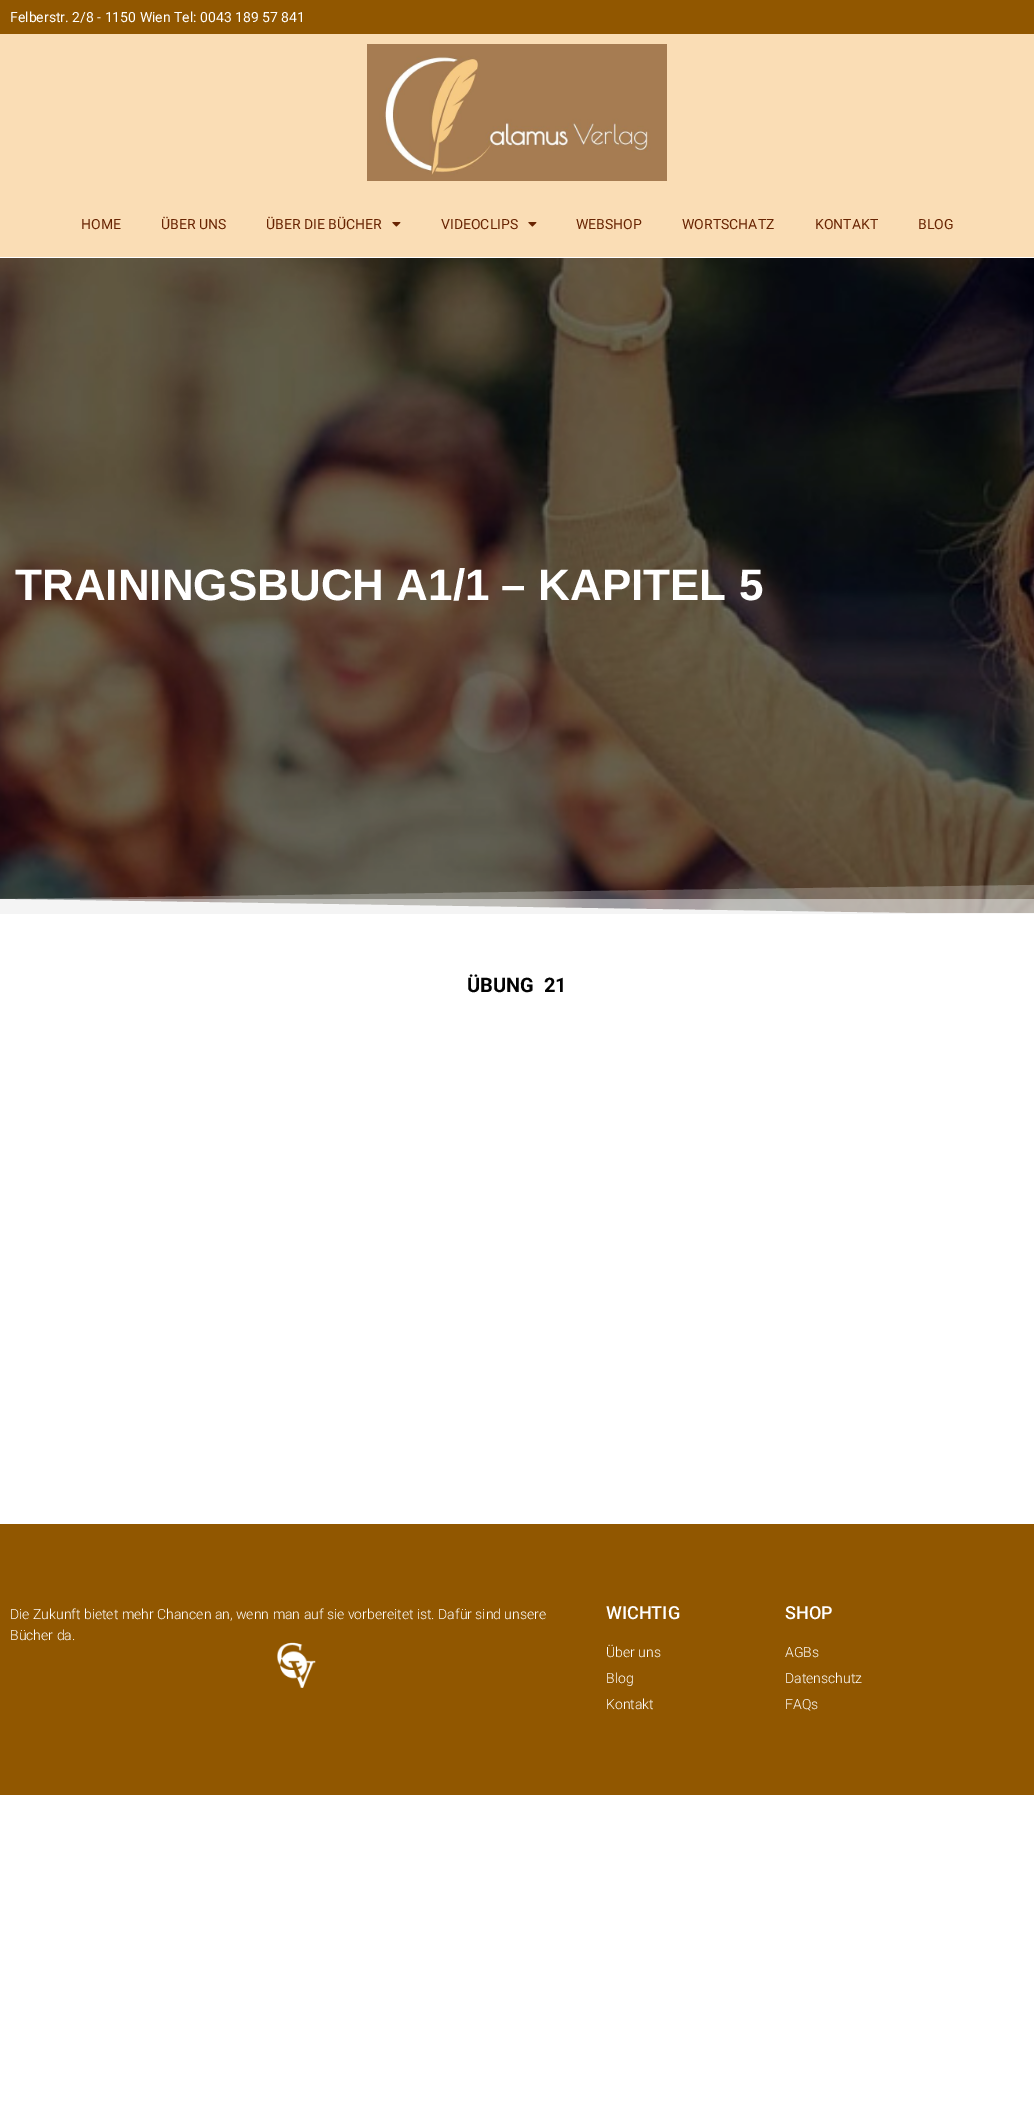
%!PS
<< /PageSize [1034 2119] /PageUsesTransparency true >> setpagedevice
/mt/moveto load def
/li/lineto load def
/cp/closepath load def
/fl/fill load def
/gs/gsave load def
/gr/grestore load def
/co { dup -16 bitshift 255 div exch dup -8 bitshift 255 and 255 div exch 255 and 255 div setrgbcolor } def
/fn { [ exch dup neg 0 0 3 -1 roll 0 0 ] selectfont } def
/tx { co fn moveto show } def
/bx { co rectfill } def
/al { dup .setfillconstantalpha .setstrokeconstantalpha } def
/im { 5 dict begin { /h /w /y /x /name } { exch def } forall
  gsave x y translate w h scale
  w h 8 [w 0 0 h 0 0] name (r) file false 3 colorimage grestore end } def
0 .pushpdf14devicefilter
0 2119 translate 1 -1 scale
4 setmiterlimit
0 0 1034 2119 16#FFFFFF bx
0 0 1034 34 16#915700 bx
0 34 1034 223 16#FADDB5 bx
(media/1.raw) 367 44 300 137 im
(media/2.raw) 392 222 9 5 im
(media/2.raw) 528 222 9 5 im
(media/3.raw) 0 258 1034 655 im
gs
0 884 1034 30 rectclip
16#F4F4F4 co
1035 915 mt -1 915 li -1 899 li cp fl
gr
0.5 al
3 899 1031 15 16#F4F4F4 bx
gs
0 884 1034 30 rectclip
0.25 al
-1 915 mt 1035 915 li 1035 885 li -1 899 li cp fl
gr
1 al
0 1524 1034 271 16#915700 bx
(media/4.raw) 277 1642 39 46 im
(Felberstr. 2/8 - 1150 Wien Tel: 0043 189 57 841) 10 22 /Roboto-Regular 14 16#FFFFFF tx
(HOME) 81 229 /Roboto-Regular 14 16#682402 tx
(ÜBER UNS) 161 229 /Roboto-Regular 14 16#682402 tx
(ÜBER DIE BÜCHER) 266 229 /Roboto-Regular 14 16#682402 tx
(VIDEOCLIPS) 441 229 /Roboto-Regular 14 16#682402 tx
(WEBSHOP) 576 229 /Roboto-Regular 14 16#682402 tx
(WORTSCHATZ) 682 229 /Roboto-Regular 14 16#682402 tx
(KONTAKT) 815 229 /Roboto-Regular 14 16#682402 tx
(BLOG) 918 229 /Roboto-Regular 14 16#682402 tx
(TRAININGSBUCH A1/1 – KAPITEL 5) 15 600 /LiberationSans-Bold 44 16#FFFFFF tx
(ÜBUNG  21) 467 992 /Roboto-Bold 20 16#030303 tx
(Die Zukunft bietet mehr Chancen an, wenn man auf sie vorbereitet ist. Dafür sind unsere) 10 1619 /Roboto-Light 14 16#FFFFFF tx
(Bücher da.) 10 1640 /Roboto-Light 14 16#FFFFFF tx
(WICHTIG) 606 1619 /Roboto-Medium 18 16#FFFFFF tx
(Über uns) 606 1657 /Roboto-Light 14 16#FFFFFF tx
(Blog) 606 1683 /Roboto-Light 14 16#FFFFFF tx
(Kontakt) 606 1709 /Roboto-Light 14 16#FFFFFF tx
(SHOP) 785 1619 /Roboto-Medium 18 16#FFFFFF tx
(AGBs) 785 1657 /Roboto-Light 14 16#FFFFFF tx
(Datenschutz) 785 1683 /Roboto-Light 14 16#FFFFFF tx
(FAQs) 785 1709 /Roboto-Light 14 16#FFFFFF tx
.poppdf14devicefilter showpage
